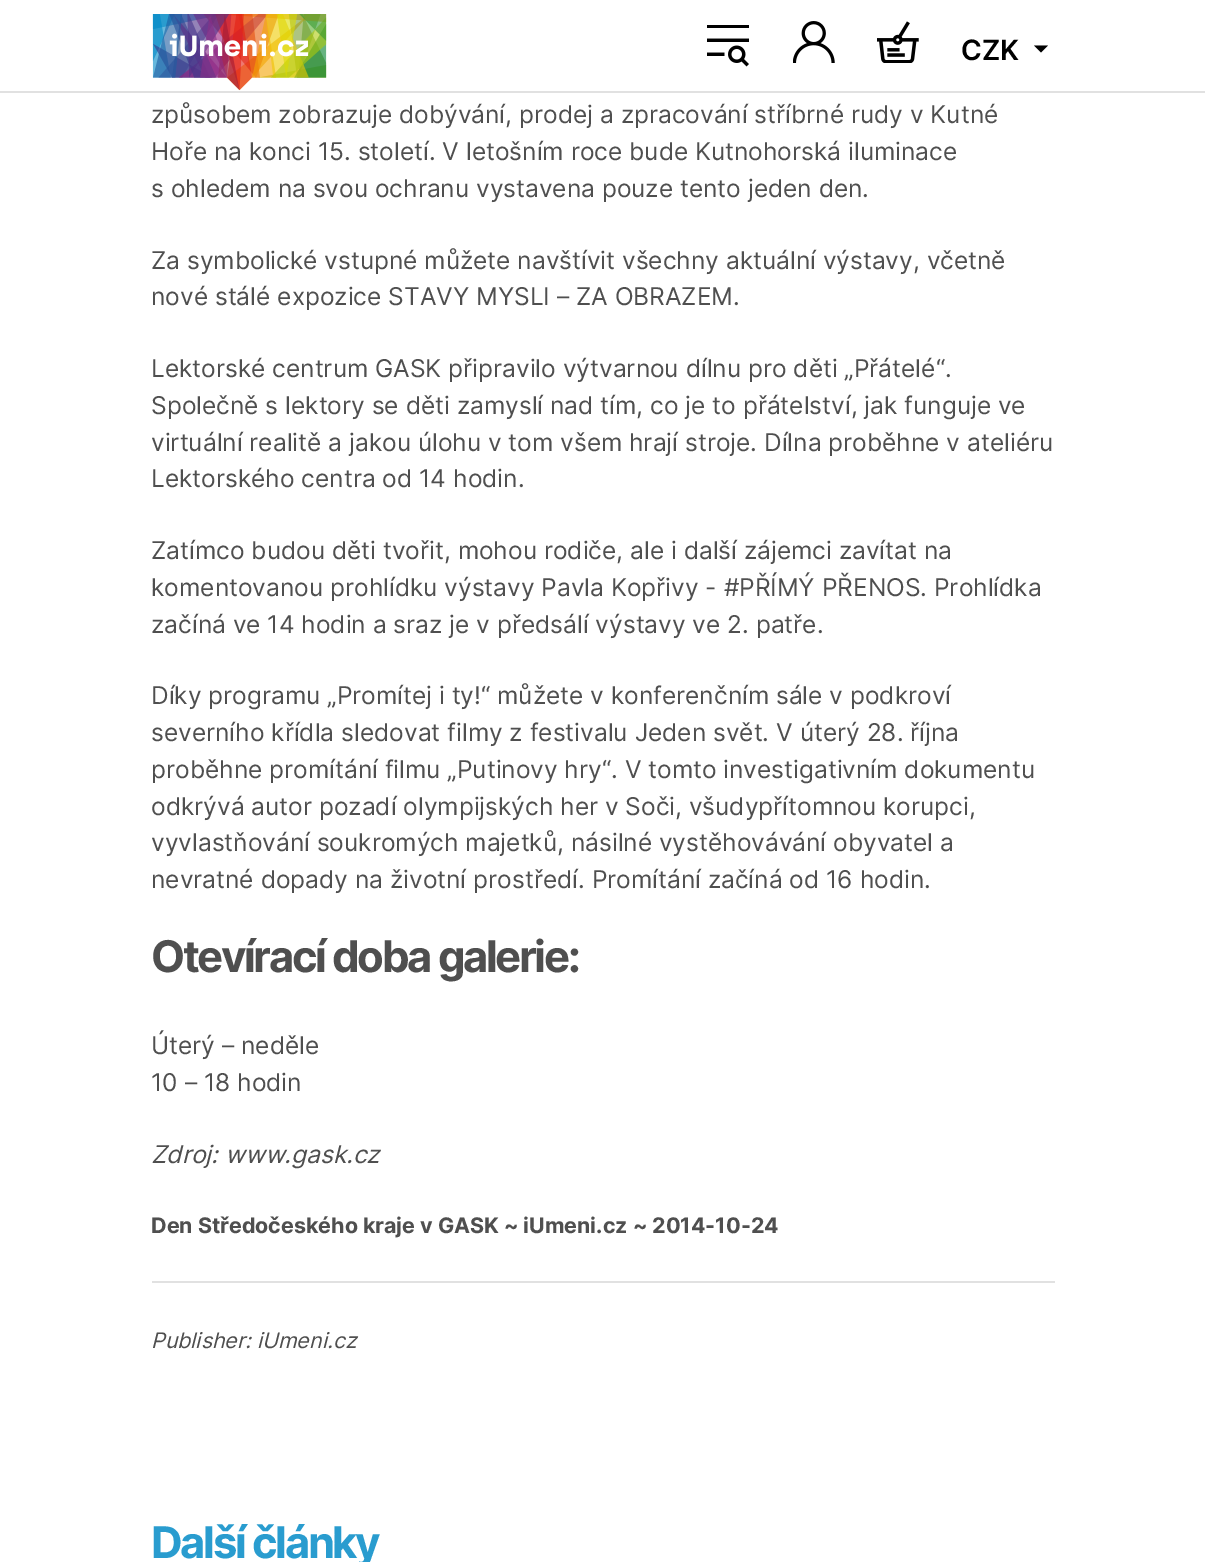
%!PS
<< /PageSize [1205 1562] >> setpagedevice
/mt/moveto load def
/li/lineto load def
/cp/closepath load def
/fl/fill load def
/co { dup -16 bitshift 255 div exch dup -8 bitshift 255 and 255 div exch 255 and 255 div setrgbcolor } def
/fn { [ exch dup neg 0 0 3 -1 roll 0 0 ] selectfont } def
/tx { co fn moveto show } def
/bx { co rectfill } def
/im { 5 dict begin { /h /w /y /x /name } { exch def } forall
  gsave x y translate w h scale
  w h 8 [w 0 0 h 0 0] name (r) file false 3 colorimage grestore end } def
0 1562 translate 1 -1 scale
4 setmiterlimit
0 0 1205 1562 16#FFFFFF bx
0 91 1205 2 16#E1E1E1 bx
(media/1.raw) 152 14 175 77 im
(media/2.raw) 707 25 42 42 im
(media/3.raw) 793 21 42 42 im
(media/4.raw) 877 21 42 42 im
16#000000 co
1034 45.5 mt 1048 45.5 li 1041 52.5 li cp fl
152 1281 903 2 16#E1E1E1 bx
(CZK) 961 60 /Inter-SemiBold 28 16#000000 tx
(způsobem zobrazuje dobývání, prodej a zpracování stříbrné rudy v Kutné) 151 123 /Inter-Regular 24.5 16#4F4F4F tx
(Hoře na konci 15. století. V letošním roce bude Kutnohorská iluminace) 151 160 /Inter-Regular 24.5 16#4F4F4F tx
(s ohledem na svou ochranu vystavena pouze tento jeden den.) 151 197 /Inter-Regular 24.5 16#4F4F4F tx
(Za symbolické vstupné můžete navštívit všechny aktuální výstavy, včetně) 151 269 /Inter-Regular 24.5 16#4F4F4F tx
(nové stálé expozice STAVY MYSLI – ZA OBRAZEM.) 151 305 /Inter-Regular 24.5 16#4F4F4F tx
(Lektorské centrum GASK připravilo výtvarnou dílnu pro děti „Přátelé“.) 151 377 /Inter-Regular 24.5 16#4F4F4F tx
(Společně s lektory se děti zamyslí nad tím, co je to přátelství, jak funguje ve) 151 414 /Inter-Regular 24.5 16#4F4F4F tx
(virtuální realitě a jakou úlohu v tom všem hrají stroje. Dílna proběhne v ateliéru) 151 451 /Inter-Regular 24.5 16#4F4F4F tx
(Lektorského centra od 14 hodin.) 151 487 /Inter-Regular 24.5 16#4F4F4F tx
(Zatímco budou děti tvořit, mohou rodiče, ale i další zájemci zavítat na) 151 559 /Inter-Regular 24.5 16#4F4F4F tx
(komentovanou prohlídku výstavy Pavla Kopřivy - #PŘÍMÝ PŘENOS. Prohlídka) 151 596 /Inter-Regular 24.5 16#4F4F4F tx
(začíná ve 14 hodin a sraz je v předsálí výstavy ve 2. patře.) 151 633 /Inter-Regular 24.5 16#4F4F4F tx
(Díky programu „Promítej i ty!“ můžete v konferenčním sále v podkroví) 151 704 /Inter-Regular 24.5 16#4F4F4F tx
(severního křídla sledovat filmy z festivalu Jeden svět. V úterý 28. října) 151 741 /Inter-Regular 24.5 16#4F4F4F tx
(proběhne promítání filmu „Putinovy hry“. V tomto investigativním dokumentu) 151 778 /Inter-Regular 24.5 16#4F4F4F tx
(odkrývá autor pozadí olympijských her v Soči, všudypřítomnou korupci,) 151 815 /Inter-Regular 24.5 16#4F4F4F tx
(vyvlastňování soukromých majetků, násilné vystěhovávání obyvatel a) 151 851 /Inter-Regular 24.5 16#4F4F4F tx
(nevratné dopady na životní prostředí. Promítání začíná od 16 hodin.) 151 888 /Inter-Regular 24.5 16#4F4F4F tx
/Inter-Bold 43.6 fn
151 972 mt -2.4 0 (Otevírací doba galerie:) ashow
(Úterý – neděle) 151 1054 /Inter-Regular 24.5 16#4F4F4F tx
(10 – 18 hodin) 151 1091 /Inter-Regular 24.5 16#4F4F4F tx
(Zdroj: www.gask.cz) 151 1163 /Inter-Italic 24.5 16#4F4F4F tx
(Den Středočeského kraje v GASK ~ iUmeni.cz ~ 2014-10-24) 151 1233 /Inter-Bold 21.45 16#4F4F4F tx
(Publisher: iUmeni.cz) 151 1348 /Inter-Italic 21.45 16#4F4F4F tx
/Inter-Bold 43.6 fn
16#299CCF co
151 1558 mt -2.4 0 (Další články) ashow
showpage
